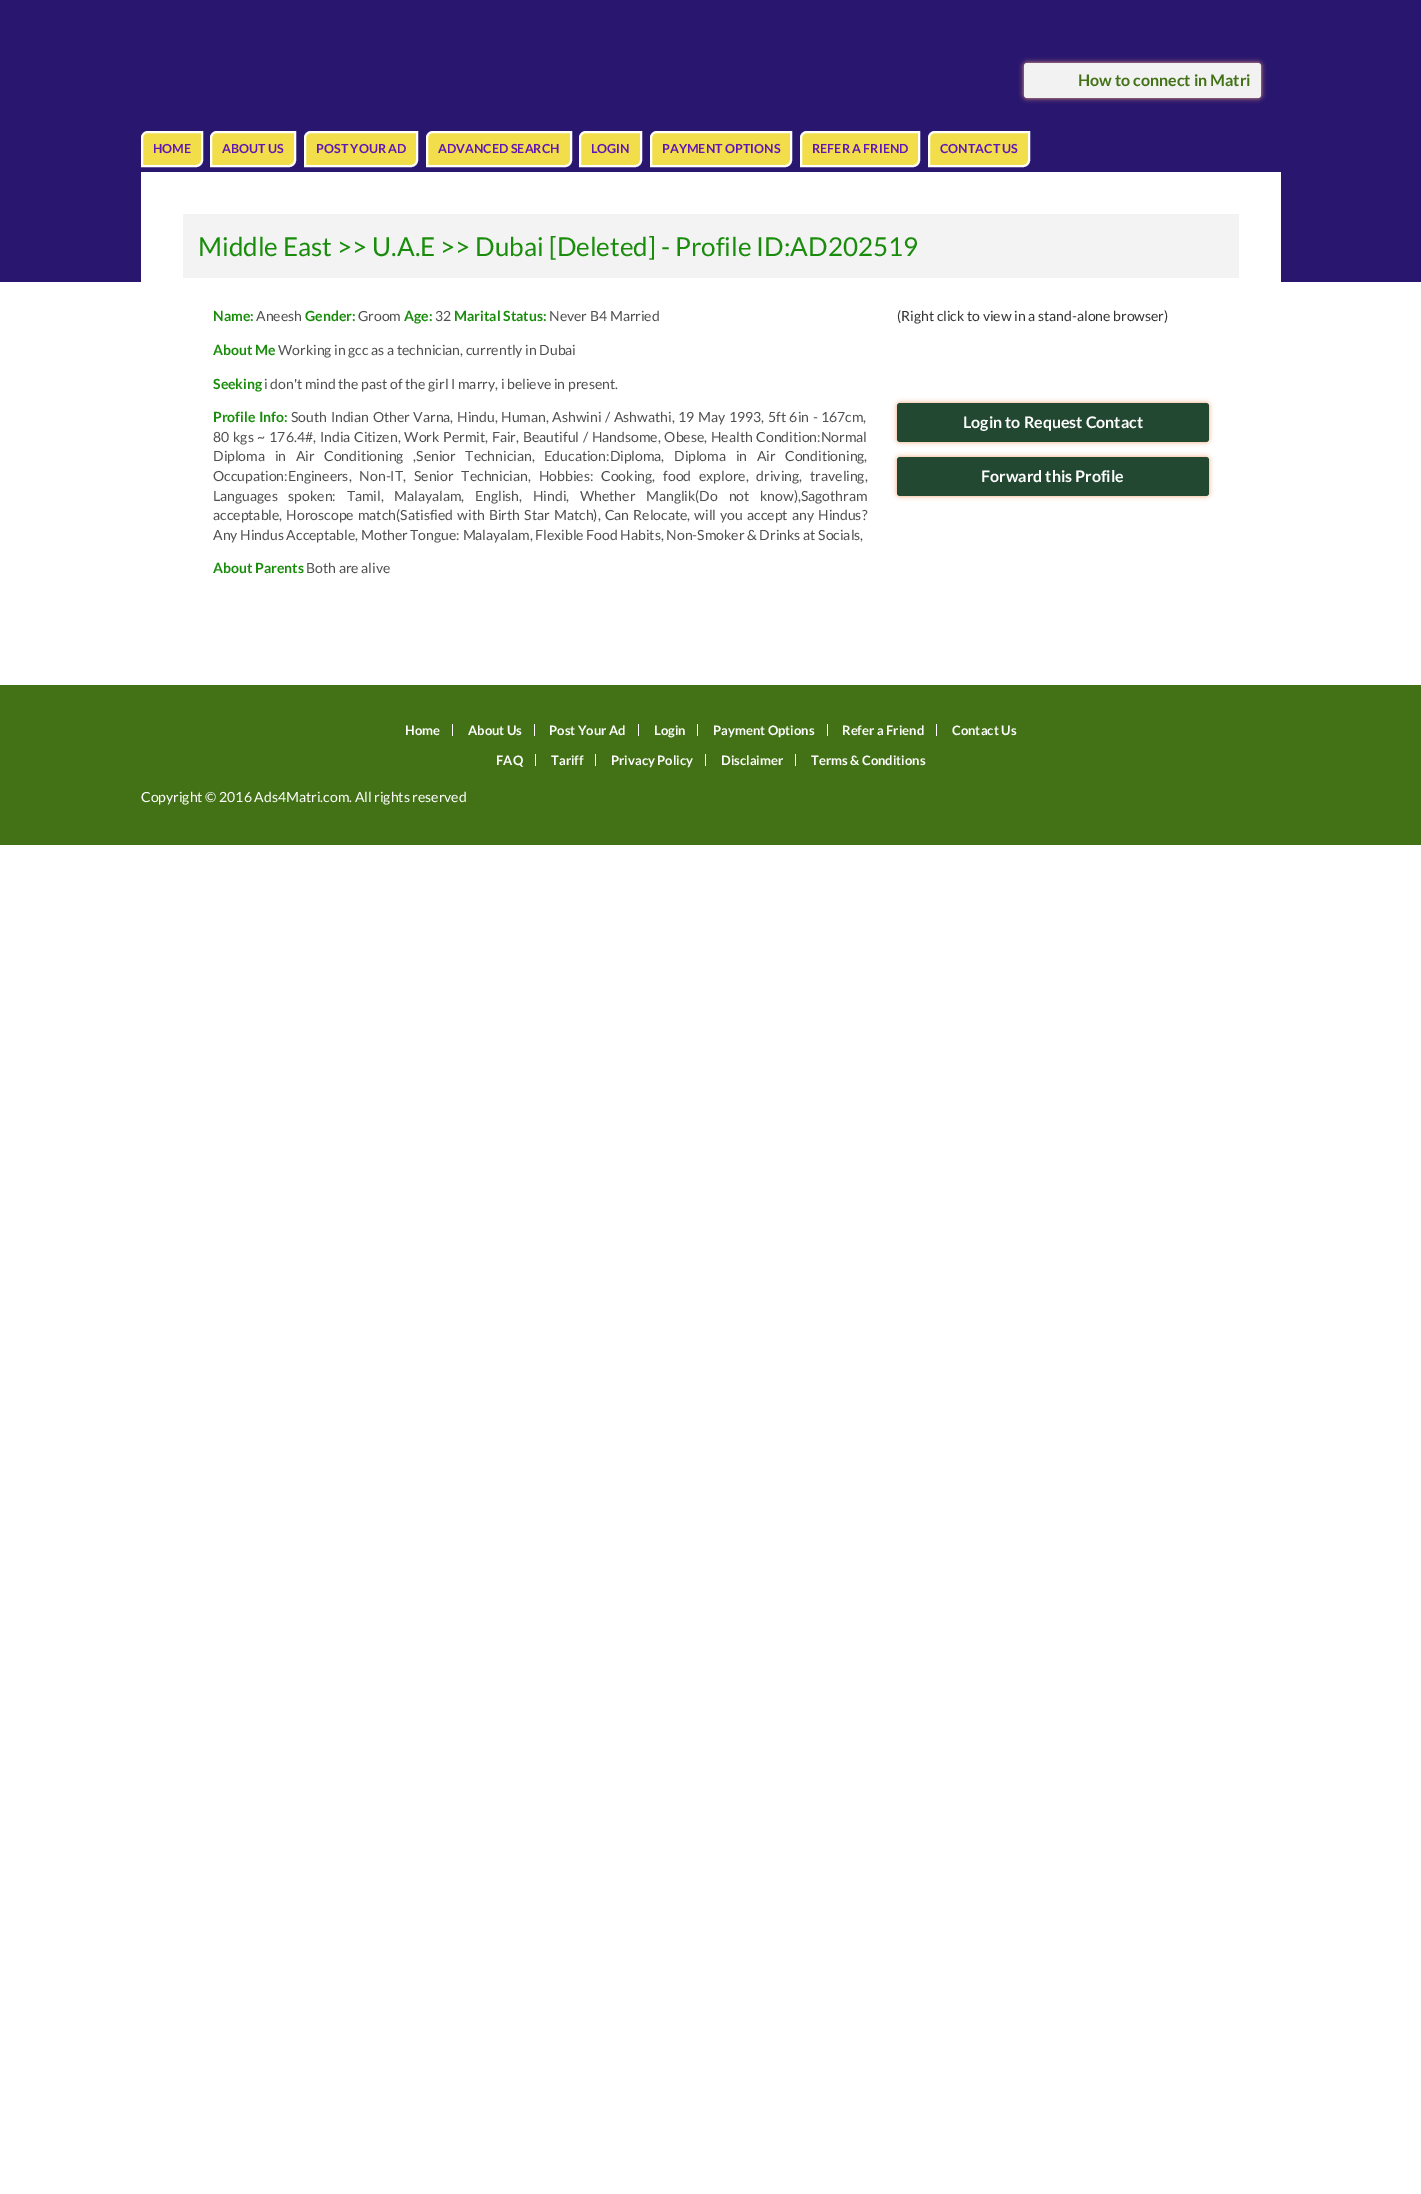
%!PS
<< /PageSize [1421 2194] /PageUsesTransparency true >> setpagedevice
/mt/moveto load def
/li/lineto load def
/ct/curveto load def
/cp/closepath load def
/fl/fill load def
/st/stroke load def
/gs/gsave load def
/gr/grestore load def
/lw/setlinewidth load def
/co { dup -16 bitshift 255 div exch dup -8 bitshift 255 and 255 div exch 255 and 255 div setrgbcolor } def
/fn { [ exch dup neg 0 0 3 -1 roll 0 0 ] selectfont } def
/tx { co fn moveto show } def
/bx { co rectfill } def
/al { dup .setfillconstantalpha .setstrokeconstantalpha } def
/rr { 5 dict begin { /r /h /w /y /x } { exch def } forall
  x r add y moveto x w add y 2 copy h add r arct x w add y h add x 1 index r arct
  x y h add x y r arct x y 2 copy exch w add exch r arct closepath end } def
/sh { 12 dict begin { /a /b /q /h /w /y /x } { exch def } forall gsave /was 0 def
  9 -2 -9 { dup b mul 4 div /e exch def 1 sub .425 mul 2.718 exch exp 1 add a .99 .min exch div /now exch def
    1 1 now sub 1 was sub div sub al /was now def
    w h .min e 2 mul add 0 gt { x e sub y e sub w e 2 mul add h e 2 mul add
      q e add b .6 mul add w h .min 2 div e add .min 0 .max rr fill } if } for grestore end } def
0 .pushpdf14devicefilter
0 2194 translate 1 -1 scale
4 setmiterlimit
0 0 1421 2194 16#FFFFFF bx
0 0 1421 282 16#29166F bx
16#EFA375 co
1024 63 237 35 3 2.5 1 sh
16#F2F2F2 co
1024 63 237 35 3 rr fl
16#F2DD4A co
148 132 mt 202 132 li 202 160 li 202 163.5 199.5 166 196 166 ct 142 166 li 142 138 li 142 134.5 144.5 132 148 132 ct cp gs fl gr
16#FFFFFF co
2 lw
st
16#F2DD4A co
217 132 mt 295 132 li 295 160 li 295 163.5 292.5 166 289 166 ct 211 166 li 211 138 li 211 134.5 213.5 132 217 132 ct cp gs fl gr
16#FFFFFF co
st
16#F2DD4A co
311 132 mt 417 132 li 417 160 li 417 163.5 414.5 166 411 166 ct 305 166 li 305 138 li 305 134.5 307.5 132 311 132 ct cp gs fl gr
16#FFFFFF co
st
16#F2DD4A co
433 132 mt 571 132 li 571 160 li 571 163.5 568.5 166 565 166 ct 427 166 li 427 138 li 427 134.5 429.5 132 433 132 ct cp gs fl gr
16#FFFFFF co
st
16#F2DD4A co
586 132 mt 641 132 li 641 160 li 641 163.5 638.5 166 635 166 ct 580 166 li 580 138 li 580 134.5 582.5 132 586 132 ct cp gs fl gr
16#FFFFFF co
st
16#F2DD4A co
657 132 mt 791 132 li 791 160 li 791 163.5 788.5 166 785 166 ct 651 166 li 651 138 li 651 134.5 653.5 132 657 132 ct cp gs fl gr
16#FFFFFF co
st
16#F2DD4A co
807 132 mt 919 132 li 919 160 li 919 163.5 916.5 166 913 166 ct 801 166 li 801 138 li 801 134.5 803.5 132 807 132 ct cp gs fl gr
16#FFFFFF co
st
16#F2DD4A co
935 132 mt 1029 132 li 1029 160 li 1029 163.5 1026.5 166 1023 166 ct 929 166 li 929 138 li 929 134.5 931.5 132 935 132 ct cp gs fl gr
16#FFFFFF co
st
141 172 1140 110 16#FFFFFF bx
183 214 1056 64 16#F3F3F3 bx
16#EFA375 co
897 403 312 39 3 2.5 1 sh
16#224831 co
897 403 312 39 3 rr fl
16#EFA375 co
897 457 312 39 3 2.5 1 sh
16#224831 co
897 457 312 39 3 rr fl
0 685 1421 160 16#437216 bx
452 724 1 12 16#FFFFFF bx
534 724 1 12 16#FFFFFF bx
638 724 1 12 16#FFFFFF bx
697 724 1 12 16#FFFFFF bx
827 724 1 12 16#FFFFFF bx
936 724 1 12 16#FFFFFF bx
535 754 1 12 16#FFFFFF bx
595 754 1 12 16#FFFFFF bx
705 754 1 12 16#FFFFFF bx
795 754 1 12 16#FFFFFF bx
(How to connect in Matri) 1078 86 /Lato-Bold 16 16#437216 tx
(HOME) 153 153 /Lato-Bold 12.5 16#6115B4 tx
(ABOUT US) 222 153 /Lato-Bold 12.5 16#6115B4 tx
(POST YOUR AD) 316 153 /Lato-Bold 12.5 16#6115B4 tx
(ADVANCED SEARCH) 438 153 /Lato-Bold 12.5 16#6115B4 tx
(LOGIN) 591 153 /Lato-Bold 12.5 16#6115B4 tx
(PAYMENT OPTIONS) 662 153 /Lato-Bold 12.5 16#6115B4 tx
(REFER A FRIEND) 812 153 /Lato-Bold 12.5 16#6115B4 tx
(CONTACT US) 940 153 /Lato-Bold 12.5 16#6115B4 tx
(Middle East >> U.A.E >> Dubai [Deleted] - Profile ID:AD202519) 198 256 /Lato-Regular 26 16#1A8C0B tx
(Name:) 213 321 /Lato-Bold 14 16#1A8C0B tx
(Aneesh) 256 321 /Lato-Regular 14 16#4F4F4F tx
(Gender:) 305 321 /Lato-Bold 14 16#1A8C0B tx
(Groom) 358 321 /Lato-Regular 14 16#4F4F4F tx
(Age:) 404 321 /Lato-Bold 14 16#1A8C0B tx
(32) 435 321 /Lato-Regular 14 16#4F4F4F tx
(Marital Status:) 454 321 /Lato-Bold 14 16#1A8C0B tx
(Never B4 Married) 549 321 /Lato-Regular 14 16#4F4F4F tx
(About Me) 213 355 /Lato-Bold 14 16#1A8C0B tx
(Working in gcc as a technician, currently in Dubai) 278 355 /Lato-Regular 14 16#4F4F4F tx
(Seeking) 213 389 /Lato-Bold 14 16#1A8C0B tx
(i don't mind the past of the girl I marry, i believe in present.) 264 389 /Lato-Regular 14 16#4F4F4F tx
/Lato-Bold 14 fn
16#1A8C0B co
213 422 mt 1 0 32 (Profile Info:) widthshow
/Lato-Regular 14 fn
16#4F4F4F co
291 422 mt .9 0 32 (South Indian Other Varna, Hindu, Human, Ashwini / Ashwathi, 19 May 1993, 5ft 6in - 167cm,) widthshow
213 442 mt 1.1 0 32 (80 kgs ~ 176.4#, India Citizen, Work Permit, Fair, Beautiful / Handsome, Obese, Health Condition:Normal) widthshow
213 461 mt 7 0 32 (Diploma in Air Conditioning ,Senior Technician, Education:Diploma, Diploma in Air Conditioning,) widthshow
213 481 mt 5.25 0 32 (Occupation:Engineers, Non-IT, Senior Technician, Hobbies: Cooking, food explore, driving, traveling,) widthshow
213 501 mt 8 0 32 (Languages spoken: Tamil, Malayalam, English, Hindi, Whether Manglik\(Do not know\),Sagothram) widthshow
213 520 mt 1.5 0 32 (acceptable, Horoscope match\(Satisfied with Birth Star Match\), Can Relocate, will you accept any Hindus?) widthshow
(Any Hindus Acceptable, Mother Tongue: Malayalam, Flexible Food Habits, Non-Smoker & Drinks at Socials,) 213 540 /Lato-Regular 14 16#4F4F4F tx
(About Parents) 213 573 /Lato-Bold 14 16#1A8C0B tx
(Both are alive) 306 573 /Lato-Regular 14 16#4F4F4F tx
(\(Right click to view in a stand-alone browser\)) 897 321 /Lato-Regular 14 16#333333 tx
(Login to Request Contact) 963 428 /Lato-Bold 16 16#FFFFFF tx
(Forward this Profile) 981 482 /Lato-Bold 16 16#FFFFFF tx
(Home) 405 735 /Lato-Bold 13 16#FFFFFF tx
(About Us) 468 735 /Lato-Bold 13 16#FFFFFF tx
(Post Your Ad) 549 735 /Lato-Bold 13 16#FFFFFF tx
(Login) 654 735 /Lato-Bold 13 16#FFFFFF tx
(Payment Options) 713 735 /Lato-Bold 13 16#FFFFFF tx
(Refer a Friend) 842 735 /Lato-Bold 13 16#FFFFFF tx
(Contact Us) 952 735 /Lato-Bold 13 16#FFFFFF tx
(FAQ) 496 765 /Lato-Bold 13 16#FFFFFF tx
(Tariff) 551 765 /Lato-Bold 13 16#FFFFFF tx
(Privacy Policy) 611 765 /Lato-Bold 13 16#FFFFFF tx
(Disclaimer) 721 765 /Lato-Bold 13 16#FFFFFF tx
(Terms & Conditions) 811 765 /Lato-Bold 13 16#FFFFFF tx
(Copyright © 2016 Ads4Matri.com. All rights reserved) 141 802 /Lato-Regular 14 16#FFFFFF tx
.poppdf14devicefilter showpage
